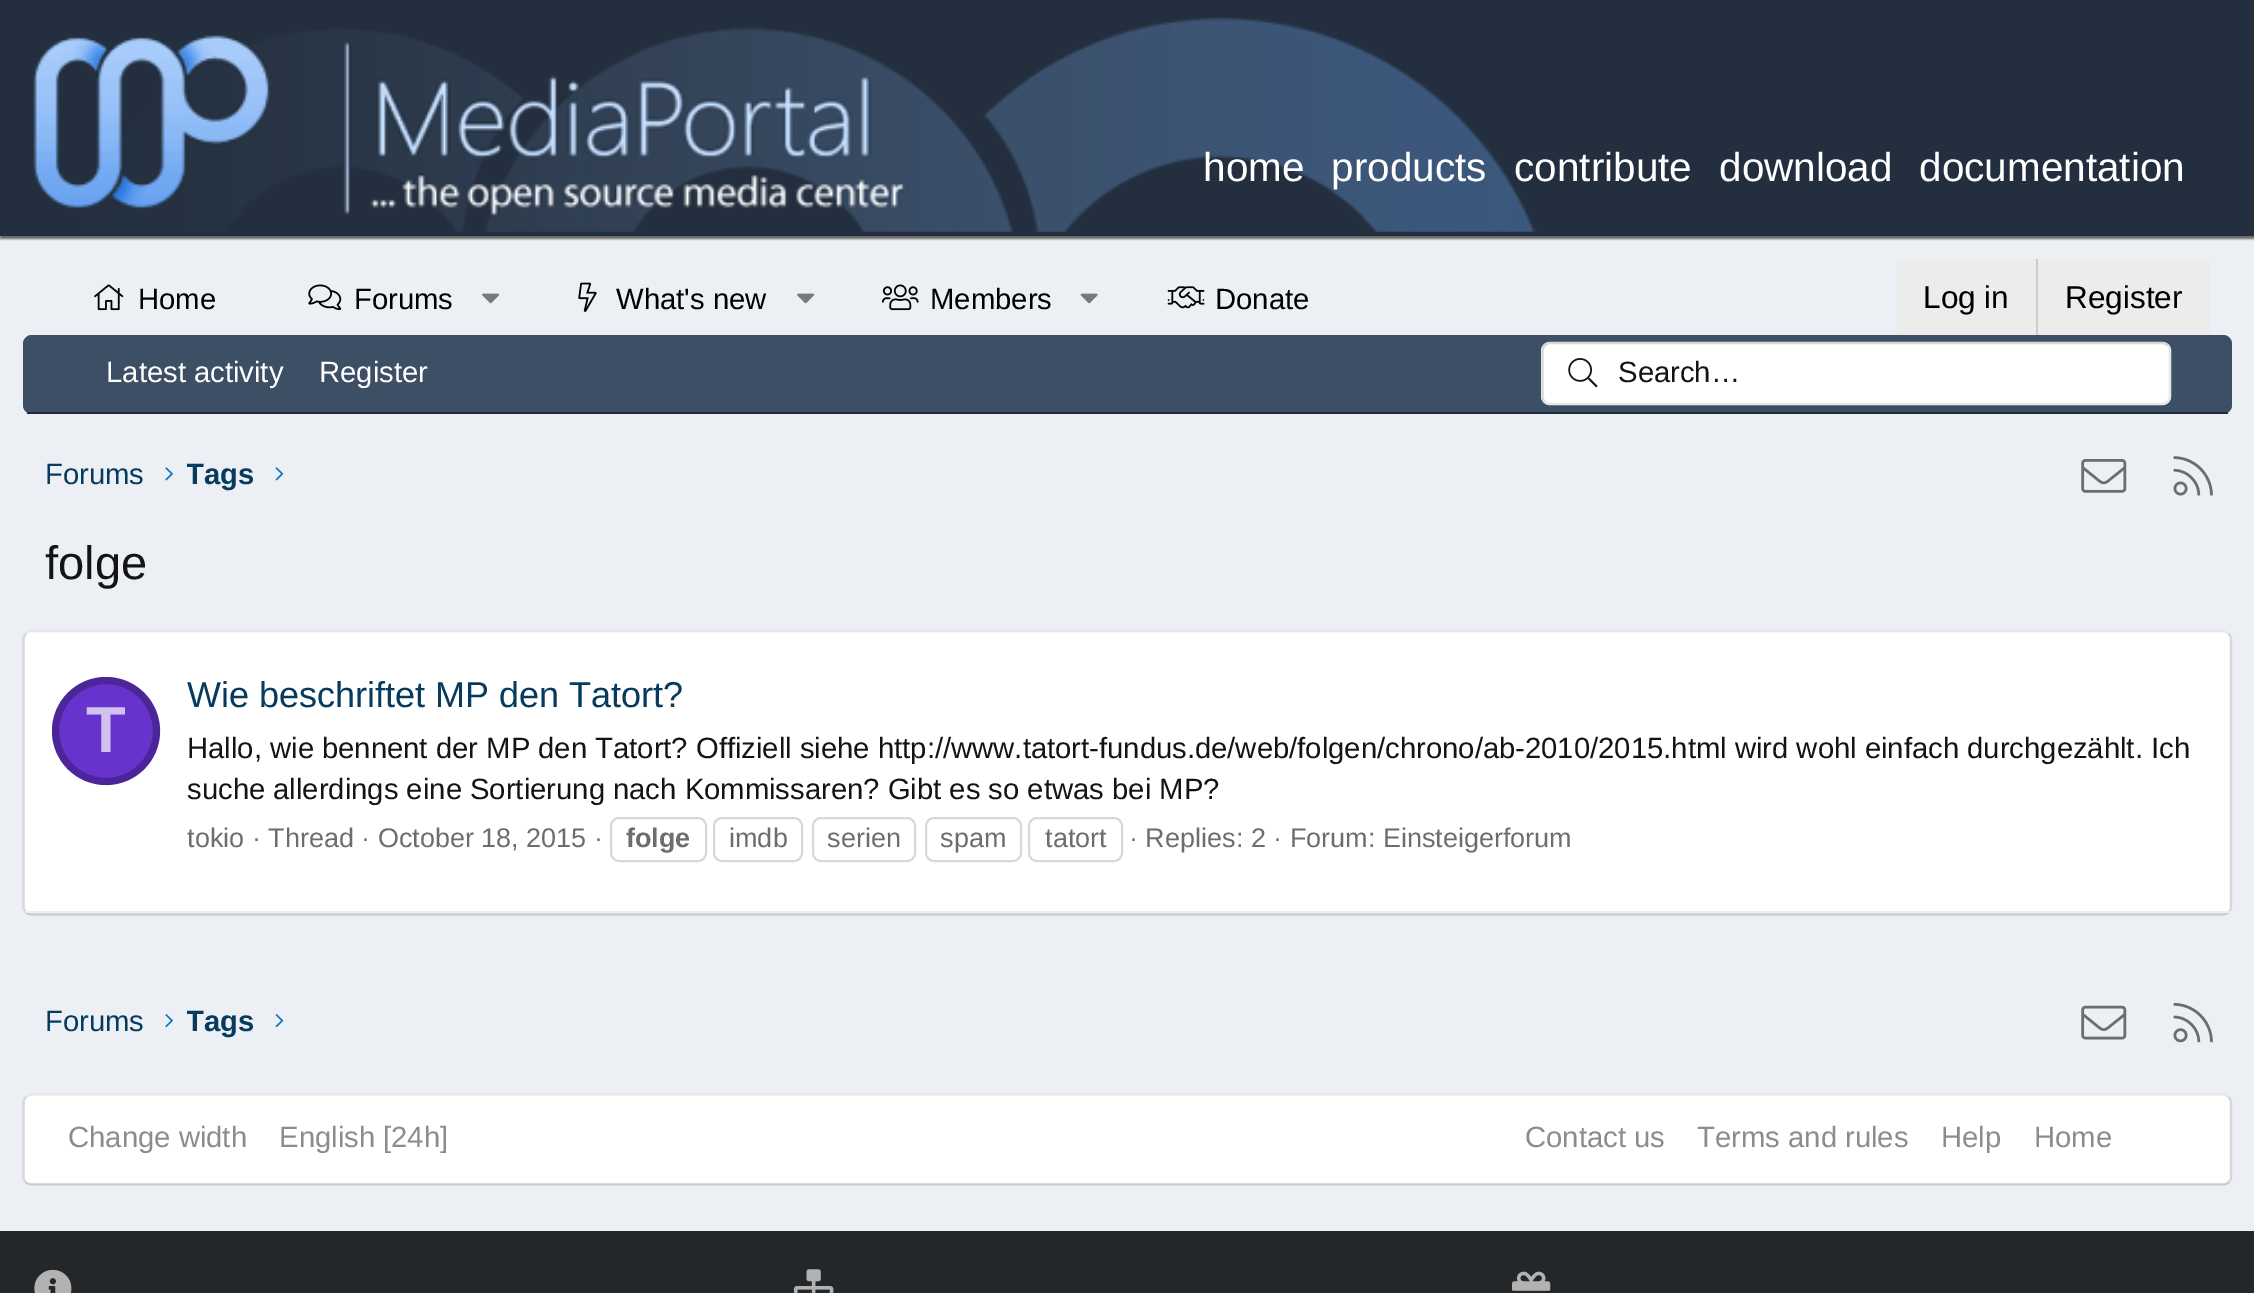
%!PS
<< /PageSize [2254 1293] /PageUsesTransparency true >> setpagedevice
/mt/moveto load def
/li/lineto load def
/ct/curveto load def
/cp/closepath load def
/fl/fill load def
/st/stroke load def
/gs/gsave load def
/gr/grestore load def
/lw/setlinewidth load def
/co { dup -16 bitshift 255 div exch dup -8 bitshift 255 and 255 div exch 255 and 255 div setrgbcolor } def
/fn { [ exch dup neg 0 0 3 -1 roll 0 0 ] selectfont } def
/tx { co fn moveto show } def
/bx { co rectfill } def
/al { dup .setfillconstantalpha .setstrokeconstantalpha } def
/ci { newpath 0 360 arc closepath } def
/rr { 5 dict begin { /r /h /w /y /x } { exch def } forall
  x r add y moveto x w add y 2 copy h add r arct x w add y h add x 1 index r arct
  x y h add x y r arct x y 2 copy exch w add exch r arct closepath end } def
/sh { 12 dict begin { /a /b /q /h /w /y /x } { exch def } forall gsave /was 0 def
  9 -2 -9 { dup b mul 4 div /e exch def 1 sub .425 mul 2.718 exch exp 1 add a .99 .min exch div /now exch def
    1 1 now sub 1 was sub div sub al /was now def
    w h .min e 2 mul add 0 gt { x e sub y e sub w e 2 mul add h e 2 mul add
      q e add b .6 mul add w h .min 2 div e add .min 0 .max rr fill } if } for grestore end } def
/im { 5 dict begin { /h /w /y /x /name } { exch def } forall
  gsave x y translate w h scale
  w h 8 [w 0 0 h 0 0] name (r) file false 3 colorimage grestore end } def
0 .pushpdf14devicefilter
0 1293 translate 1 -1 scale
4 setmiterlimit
0 0 2254 1293 16#ECF0F5 bx
16#666666 co
0 2 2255 237 0 1 1 sh
0 0 2254 236 16#232F3E bx
(media/1.raw) 33 18 1504 214 im
(media/2.raw) 94 284 30 27 im
(media/3.raw) 308 284 34 27 im
(media/4.raw) 482 293 18 11 im
(media/5.raw) 578 282 19 30 im
(media/4.raw) 797 293 18 11 im
(media/6.raw) 882 284 37 27 im
(media/7.raw) 1080 293 18 11 im
(media/8.raw) 1167 286 38 23 im
16#ECECEC co
1906 259 mt 2201 259 li 2206 259 2210 263 2210 268 ct 2210 335 li 1897 335 li 1897 268 li 1897 263 1901 259 1906 259 ct cp fl
2036 259 2 76 16#CCCCCC bx
16#3D4F65 co
23 335 2209 79 9 rr fl
27 412 2201 2 16#212D3A bx
16#FFFFFF co
1541 342 630 63 9 rr fl
16#E7E7E7 co
2.2 lw
2168 345.5 mt 2169.5 347 2170 349 2170 351 ct 2170 396 li 2170 398 2169.5 400 2168 401.5 ct 2166.5 403 2164.5 404 2162 404 ct 1550 404 li 1548 404 1546 403 1544.5 401.5 ct st
16#D8D8D8 co
1544.5 401.5 mt 1543 400 1542.5 398 1542.5 396 ct 1542.5 351 li 1542.5 349 1543 347 1544.5 345.5 ct 1546 344 1548 343 1550 343 ct 2162 343 li 2164.5 343 2166.5 344 2168 345.5 ct st
(media/9.raw) 1568 358 30 30 im
(media/10.raw) 165 467 8 14 im
(media/11.raw) 275 467 9 14 im
(media/12.raw) 2081 459 46 34 im
(media/13.raw) 2173 456 40 40 im
16#FFFFFF co
23 630 2209 286 9 rr fl
16#E7E7E7 co
26 633.5 mt 27.5 632 29.5 631 31.5 631 ct 2223 631 li 2225 631 2227 632 2228.5 633.5 ct st
16#D8D8D8 co
2228.5 633.5 mt 2230 635 2231 637 2231 639 ct 2231 907 li 2231 909 2230 911 2228.5 912.5 ct st
16#CBCBCB co
2228.5 912.5 mt 2227 914 2225 914.5 2223 914.5 ct 31.5 914.5 li 29.5 914.5 27.5 914 26 912.5 ct st
16#D8D8D8 co
26 912.5 mt 24.5 911 23.5 909 23.5 907 ct 23.5 639 li 23.5 637 24.5 635 26 633.5 ct st
25 911 2205 2 16#EEEEEE bx
16#6633CC co
106 731 54 ci fl
0.25 al
16#000000 co
7 lw
106 731 50.5 ci st
1 al
16#D8D8D8 co
2 lw
611 818 95 43 8 rr st
714 818 88 43 8 rr st
813 818 102 43 8 rr st
926 818 95 43 8 rr st
1029 818 93 43 8 rr st
(media/14.raw) 165 1014 8 14 im
(media/15.raw) 275 1014 9 14 im
(media/16.raw) 2081 1005 46 35 im
(media/17.raw) 2173 1002 40 41 im
16#FFFFFF co
23 1094 2209 92 9 rr fl
16#E7E7E7 co
2.2 lw
26 1097 mt 27.5 1095.5 29.5 1094.5 31.5 1094.5 ct 2223 1094.5 li 2225 1094.5 2227 1095.5 2228.5 1097 ct st
16#D8D8D8 co
2228.5 1097 mt 2230 1098.5 2231 1100.5 2231 1102.5 ct 2231 1177 li 2231 1179 2230 1181 2228.5 1182.5 ct st
16#CBCBCB co
2228.5 1182.5 mt 2227 1184 2225 1184.5 2223 1184.5 ct 31.5 1184.5 li 29.5 1184.5 27.5 1184 26 1182.5 ct st
16#D8D8D8 co
26 1182.5 mt 24.5 1181 23.5 1179 23.5 1177 ct 23.5 1102.5 li 23.5 1100.5 24.5 1098.5 26 1097 ct st
0 1231 2254 62 16#242729 bx
(media/18.raw) 34 1269 38 24 im
(media/19.raw) 793 1269 41 24 im
(media/20.raw) 1512 1271 39 20 im
(home) 1203 181 /LiberationSans-Regular 40.5 16#FFFFFF tx
(products) 1331 181 /LiberationSans-Regular 40.5 16#FFFFFF tx
(contribute) 1514 181 /LiberationSans-Regular 40.5 16#FFFFFF tx
(download) 1719 181 /LiberationSans-Regular 40.5 16#FFFFFF tx
(documentation) 1919 181 /LiberationSans-Regular 40.5 16#FFFFFF tx
(Home) 138 309 /LiberationSans-Regular 29.25 16#000000 tx
(Forums) 354 309 /LiberationSans-Regular 29.25 16#000000 tx
(What's new) 616 309 /LiberationSans-Regular 29.25 16#000000 tx
(Members) 930 309 /LiberationSans-Regular 29.25 16#000000 tx
(Donate) 1215 309 /LiberationSans-Regular 29.25 16#000000 tx
(Log in) 1923 308 /LiberationSans-Regular 31.5 16#000000 tx
(Register) 2065 308 /LiberationSans-Regular 31.5 16#000000 tx
(Latest activity) 106 382 /LiberationSans-Regular 29.25 16#FFFFFF tx
(Register) 319 382 /LiberationSans-Regular 29.25 16#FFFFFF tx
(Search…) 1618 382 /LiberationSans-Regular 29.25 16#141414 tx
(Forums) 45 484 /LiberationSans-Regular 29.25 16#063B5E tx
gs
187 452 67 43 rectclip
(Tags) 186 484 /LiberationSans-Bold 29.25 16#063B5E tx
gr
(folge) 45 579 /LiberationSans-Regular 47 16#141414 tx
(T) 86 752 /LiberationSans-Bold 65 16#D1C2F0 tx
(Wie beschriftet MP den Tatort?) 187 707 /LiberationSans-Regular 36 16#063B5E tx
(Hallo, wie bennent der MP den Tatort? Offiziell siehe http://www.tatort-fundus.de/web/folgen/chrono/ab-2010/2015.html wird wohl einfach durchgezählt. Ich) 187 758 /LiberationSans-Regular 29.25 16#141414 tx
(suche allerdings eine Sortierung nach Kommissaren? Gibt es so etwas bei MP?) 187 799 /LiberationSans-Regular 29.25 16#141414 tx
(tokio · Thread · October 18, 2015 ·) 187 847 /LiberationSans-Regular 27 16#6D6D6D tx
(folge) 626 847 /LiberationSans-Bold 27 16#6D6D6D tx
(imdb) 729 847 /LiberationSans-Regular 27 16#6D6D6D tx
(serien) 827 847 /LiberationSans-Regular 27 16#6D6D6D tx
(spam) 940 847 /LiberationSans-Regular 27 16#6D6D6D tx
(tatort) 1045 847 /LiberationSans-Regular 27 16#6D6D6D tx
(· Replies: 2 · Forum: Einsteigerforum) 1129 847 /LiberationSans-Regular 27 16#6D6D6D tx
(Forums) 45 1031 /LiberationSans-Regular 29.25 16#063B5E tx
gs
187 999 67 45 rectclip
(Tags) 186 1031 /LiberationSans-Bold 29.25 16#063B5E tx
gr
(Change width) 68 1147 /LiberationSans-Regular 29.25 16#8C8C8C tx
(English [24h]) 279 1147 /LiberationSans-Regular 29.25 16#8C8C8C tx
(Contact us) 1525 1147 /LiberationSans-Regular 29.25 16#8C8C8C tx
(Terms and rules) 1697 1147 /LiberationSans-Regular 29.25 16#8C8C8C tx
(Help) 1941 1147 /LiberationSans-Regular 29.25 16#8C8C8C tx
(Home) 2034 1147 /LiberationSans-Regular 29.25 16#8C8C8C tx
.poppdf14devicefilter showpage
